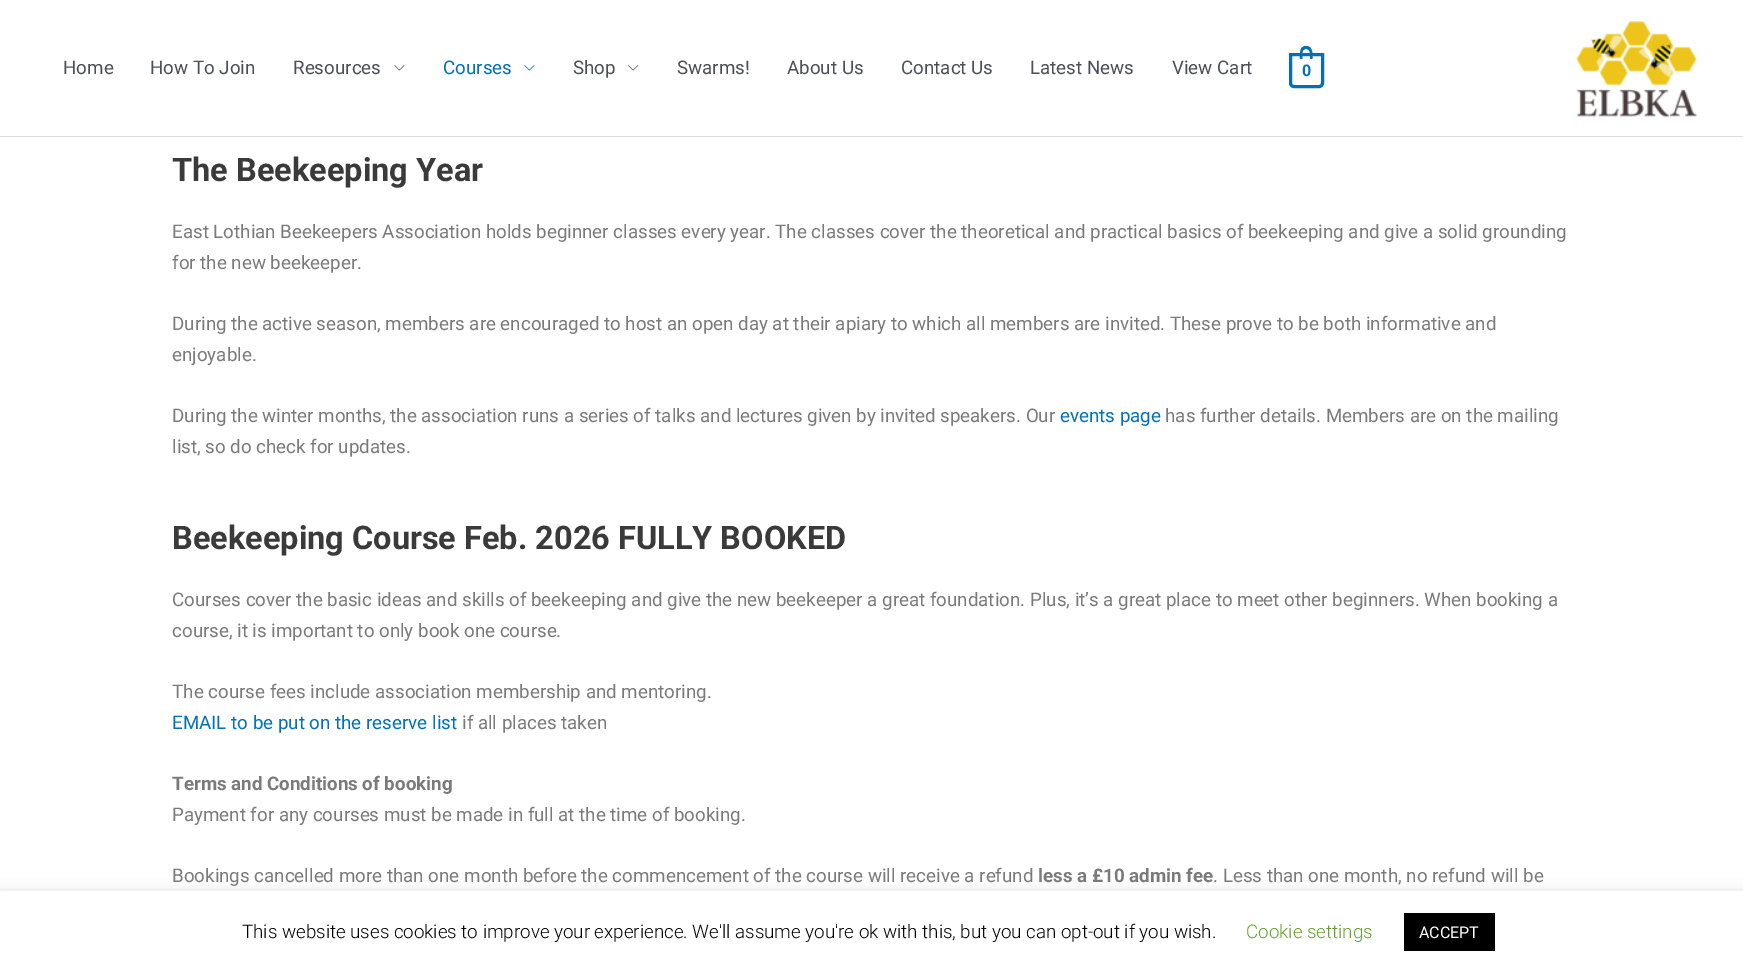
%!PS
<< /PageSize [1743 972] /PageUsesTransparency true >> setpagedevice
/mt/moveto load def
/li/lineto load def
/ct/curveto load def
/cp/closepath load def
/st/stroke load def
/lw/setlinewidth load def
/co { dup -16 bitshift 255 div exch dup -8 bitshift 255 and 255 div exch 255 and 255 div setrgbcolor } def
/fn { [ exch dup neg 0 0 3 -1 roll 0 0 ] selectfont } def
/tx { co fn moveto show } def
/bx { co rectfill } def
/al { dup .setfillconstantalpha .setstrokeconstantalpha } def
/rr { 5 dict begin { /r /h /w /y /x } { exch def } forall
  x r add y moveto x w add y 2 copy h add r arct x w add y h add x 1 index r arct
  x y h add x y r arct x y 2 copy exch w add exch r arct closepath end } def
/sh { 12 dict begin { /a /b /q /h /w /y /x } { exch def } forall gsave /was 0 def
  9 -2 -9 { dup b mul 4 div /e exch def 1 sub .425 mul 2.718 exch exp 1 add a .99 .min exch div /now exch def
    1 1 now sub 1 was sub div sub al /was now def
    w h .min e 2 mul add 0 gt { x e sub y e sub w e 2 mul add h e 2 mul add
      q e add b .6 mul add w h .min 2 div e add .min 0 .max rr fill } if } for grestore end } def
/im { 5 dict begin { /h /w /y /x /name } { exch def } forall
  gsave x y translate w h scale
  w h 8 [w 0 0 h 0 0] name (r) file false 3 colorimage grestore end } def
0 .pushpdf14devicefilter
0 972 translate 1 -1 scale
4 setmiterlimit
0 0 1743 972 16#FFFFFF bx
0 136 1743 1 16#DDDDDD bx
(media/1.raw) 394 65 11 6 im
(media/2.raw) 524 65 11 6 im
(media/3.raw) 628 65 11 6 im
16#0170B9 co
3 lw
1290.5 54.5 mt 1322.5 54.5 li 1322.5 83 li 1322.5 85 1321 86.5 1319 86.5 ct 1294 86.5 li 1292 86.5 1290.5 85 1290.5 83 ct cp st
1306 46 mt 1313 46 1312.5 54 1312.5 59 ct 1300 59 li 1300 54 1299 46 1306 46 ct cp 1306 49 mt 1311 49 1310 55.5 1310 59 ct 1302.5 59 li 1302.5 55.5 1301 49 1306 49 ct cp eofill
(media/4.raw) 1576 21 122 97 im
16#ACABAB co
0 890 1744 81 0 6 .3 sh
0 891 1743 81 16#FFFFFF bx
1404 913 91 38 16#000000 bx
(Home) 63 74 /Roboto-Regular 18.75 16#4B4F58 tx
(How To Join) 150 74 /Roboto-Regular 18.75 16#4B4F58 tx
(Resources) 293 74 /Roboto-Regular 18.75 16#4B4F58 tx
(Courses) 443 74 /Roboto-Regular 18.75 16#0170B9 tx
(Shop) 573 74 /Roboto-Regular 18.75 16#4B4F58 tx
(Swarms!) 677 74 /Roboto-Regular 18.75 16#4B4F58 tx
(About Us) 787 74 /Roboto-Regular 18.75 16#4B4F58 tx
(Contact Us) 901 74 /Roboto-Regular 18.75 16#4B4F58 tx
(Latest News) 1030 74 /Roboto-Regular 18.75 16#4B4F58 tx
(View Cart) 1172 74 /Roboto-Regular 18.75 16#4B4F58 tx
(0) 1302 76 /Roboto-Bold 16 16#0170B9 tx
(The Beekeeping Year) 172 181 /Roboto-Bold 32.5 16#3A3A3A tx
(East Lothian Beekeepers Association holds beginner classes every year. The classes cover the theoretical and practical basics of beekeeping and give a solid grounding) 172 238 /Roboto-Regular 18.75 16#7A7A7A tx
(for the new beekeeper.) 172 269 /Roboto-Regular 18.75 16#7A7A7A tx
(During the active season, members are encouraged to host an open day at their apiary to which all members are invited. These prove to be both informative and) 172 330 /Roboto-Regular 18.75 16#7A7A7A tx
(enjoyable.) 172 361 /Roboto-Regular 18.75 16#7A7A7A tx
(During the winter months, the association runs a series of talks and lectures given by invited speakers. Our) 172 422 /Roboto-Regular 18.75 16#7A7A7A tx
(events page) 1060 422 /Roboto-Regular 18.75 16#0170B9 tx
(has further details. Members are on the mailing) 1165 422 /Roboto-Regular 18.75 16#7A7A7A tx
(list, so do check for updates.) 172 453 /Roboto-Regular 18.75 16#7A7A7A tx
(Beekeeping Course Feb. 2026 FULLY BOOKED) 172 549 /Roboto-Bold 32.5 16#3A3A3A tx
(Courses cover the basic ideas and skills of beekeeping and give the new beekeeper a great foundation. Plus, it’s a great place to meet other beginners. When booking a) 172 606 /Roboto-Regular 18.75 16#7A7A7A tx
(course, it is important to only book one course.) 172 637 /Roboto-Regular 18.75 16#7A7A7A tx
(The course fees include association membership and mentoring.) 172 698 /Roboto-Regular 18.75 16#7A7A7A tx
(EMAIL to be put on the reserve list) 172 729 /Roboto-Regular 18.75 16#0170B9 tx
(if all places taken) 462 729 /Roboto-Regular 18.75 16#7A7A7A tx
(Terms and Conditions of booking) 172 790 /Roboto-Bold 18.75 16#7A7A7A tx
(Payment for any courses must be made in full at the time of booking.) 172 821 /Roboto-Regular 18.75 16#7A7A7A tx
(Bookings cancelled more than one month before the commencement of the course will receive a refund) 172 882 /Roboto-Regular 18.75 16#7A7A7A tx
(less a £10 admin fee) 1038 882 /Roboto-Bold 18.75 16#7A7A7A tx
(. Less than one month, no refund will be) 1213 882 /Roboto-Regular 18.75 16#7A7A7A tx
(This website uses cookies to improve your experience. We'll assume you're ok with this, but you can opt-out if you wish.) 242 938 /Roboto-Light 18.75 16#000000 tx
(Cookie settings) 1246 938 /Roboto-Light 18.75 16#62A329 tx
(ACCEPT) 1419 938 /Roboto-Regular 16 16#FFFFFF tx
.poppdf14devicefilter showpage
